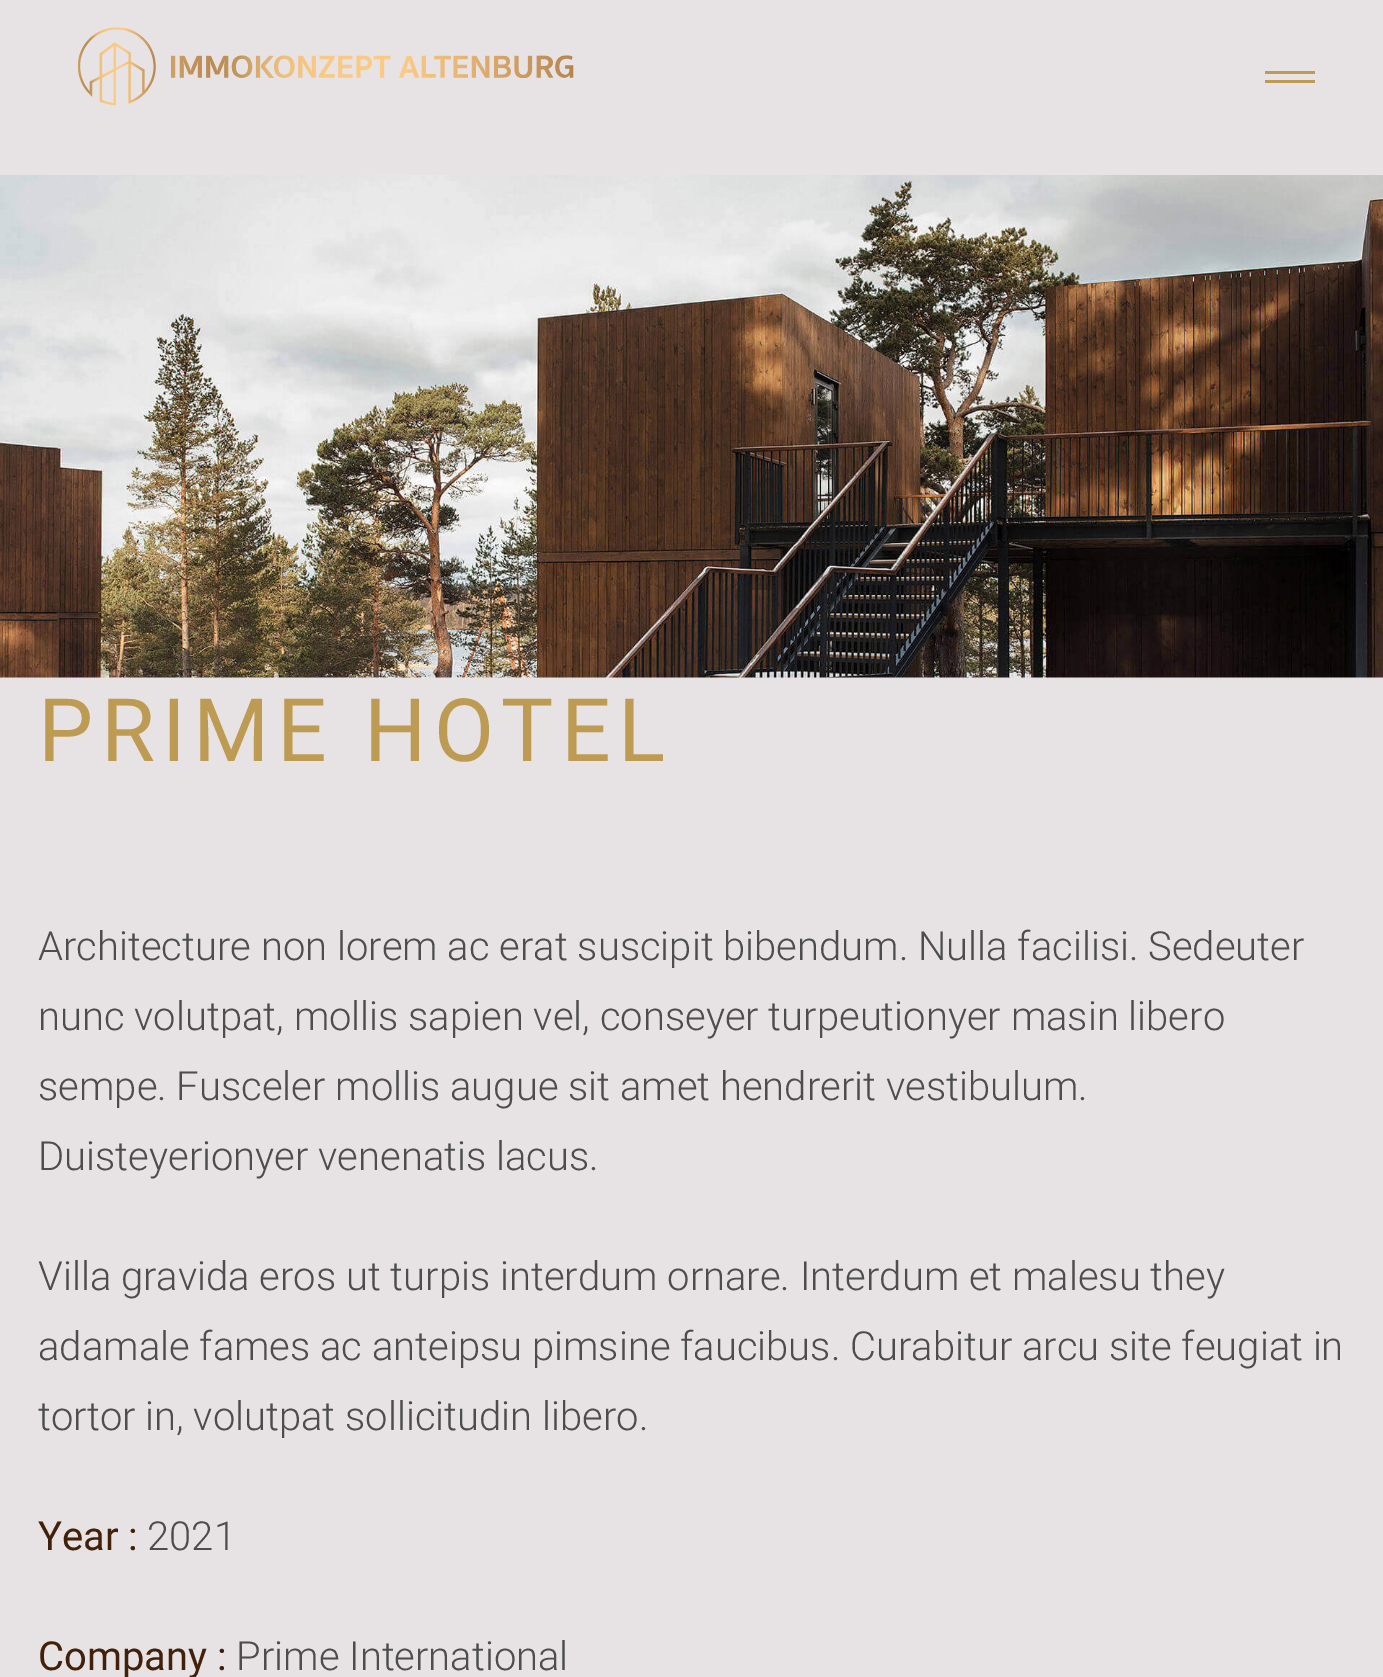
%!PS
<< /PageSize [1383 1677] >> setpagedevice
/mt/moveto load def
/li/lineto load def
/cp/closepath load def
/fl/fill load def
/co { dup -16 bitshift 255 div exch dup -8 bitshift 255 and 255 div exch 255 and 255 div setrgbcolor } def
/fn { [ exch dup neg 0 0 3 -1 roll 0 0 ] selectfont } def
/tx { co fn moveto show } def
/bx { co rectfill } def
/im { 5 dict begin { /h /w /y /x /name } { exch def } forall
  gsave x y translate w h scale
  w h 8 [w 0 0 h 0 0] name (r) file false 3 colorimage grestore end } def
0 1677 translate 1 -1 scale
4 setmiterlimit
0 0 1383 1677 16#E7E3E4 bx
(media/1.raw) 78 27 496 79 im
16#BD9B52 co
1315 71 mt 1315 74 li 1265 74 li 1265 71 li cp 1265 83 mt 1315 83 li 1315 80 li 1265 80 li cp fl
(media/2.raw) 0 175 1383 503 im
/Roboto-Regular 87.5 fn
38 761 mt 7.5 0 (PRIME HOTEL) ashow
(Architecture non lorem ac erat suscipit bibendum. Nulla facilisi. Sedeuter) 38 960 /Roboto-Light 40 16#4D4D4D tx
(nunc volutpat, mollis sapien vel, conseyer turpeutionyer masin libero) 38 1030 /Roboto-Light 40 16#4D4D4D tx
(sempe. Fusceler mollis augue sit amet hendrerit vestibulum.) 38 1100 /Roboto-Light 40 16#4D4D4D tx
(Duisteyerionyer venenatis lacus.) 38 1170 /Roboto-Light 40 16#4D4D4D tx
(Villa gravida eros ut turpis interdum ornare. Interdum et malesu they) 38 1290 /Roboto-Light 40 16#4D4D4D tx
(adamale fames ac anteipsu pimsine faucibus. Curabitur arcu site feugiat in) 38 1360 /Roboto-Light 40 16#4D4D4D tx
(tortor in, volutpat sollicitudin libero.) 38 1430 /Roboto-Light 40 16#4D4D4D tx
(Year :) 38 1550 /Roboto-Regular 40 16#42210B tx
(2021) 147 1550 /Roboto-Light 40 16#4D4D4D tx
(Company :) 38 1670 /Roboto-Regular 40 16#42210B tx
(Prime International) 236 1670 /Roboto-Light 40 16#4D4D4D tx
showpage
